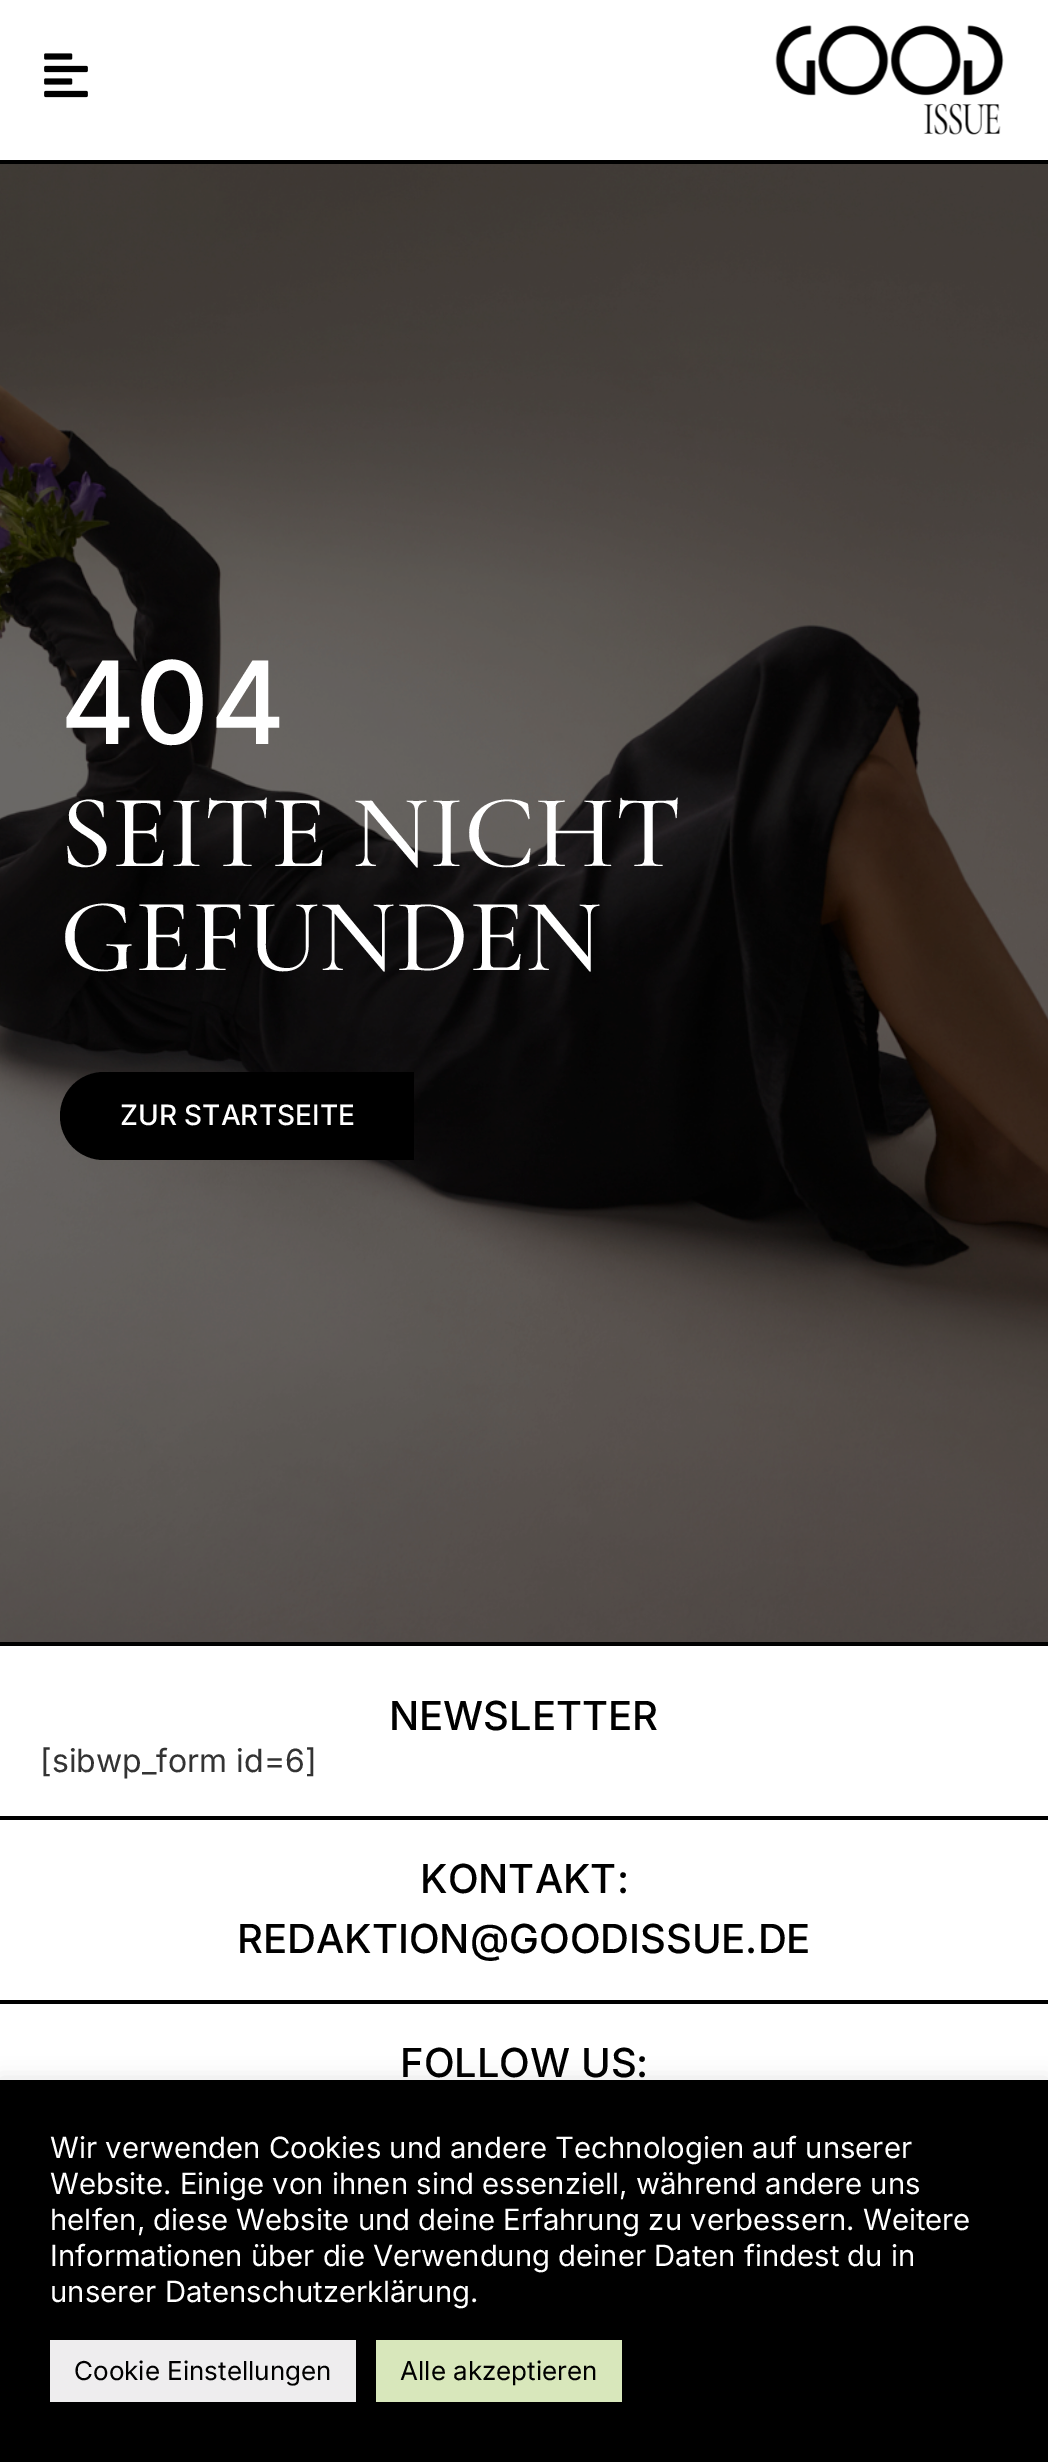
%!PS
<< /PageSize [1048 2462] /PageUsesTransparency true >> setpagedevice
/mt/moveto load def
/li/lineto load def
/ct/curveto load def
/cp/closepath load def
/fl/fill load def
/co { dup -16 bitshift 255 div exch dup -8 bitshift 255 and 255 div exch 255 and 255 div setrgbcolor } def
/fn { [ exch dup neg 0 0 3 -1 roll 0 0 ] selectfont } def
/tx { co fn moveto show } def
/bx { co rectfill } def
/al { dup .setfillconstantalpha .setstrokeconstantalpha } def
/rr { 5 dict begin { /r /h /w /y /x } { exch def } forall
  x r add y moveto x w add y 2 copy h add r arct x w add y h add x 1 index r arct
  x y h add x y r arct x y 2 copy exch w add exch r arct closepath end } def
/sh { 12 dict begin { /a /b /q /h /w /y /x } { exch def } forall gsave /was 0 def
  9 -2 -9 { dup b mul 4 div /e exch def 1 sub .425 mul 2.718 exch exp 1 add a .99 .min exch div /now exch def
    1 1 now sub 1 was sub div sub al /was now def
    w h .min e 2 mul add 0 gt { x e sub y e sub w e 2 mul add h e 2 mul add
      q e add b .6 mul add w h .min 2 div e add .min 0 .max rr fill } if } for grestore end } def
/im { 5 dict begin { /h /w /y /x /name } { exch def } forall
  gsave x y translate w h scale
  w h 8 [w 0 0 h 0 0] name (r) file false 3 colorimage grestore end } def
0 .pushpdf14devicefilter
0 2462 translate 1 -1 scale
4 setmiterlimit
0 0 1048 2462 16#FFFFFF bx
0 160 1048 4 16#000000 bx
(media/1.raw) 44 53 44 45 im
(media/2.raw) 775 25 229 110 im
(media/3.raw) 0 164 1048 1478 im
104 1072 mt 414 1072 li 414 1160 li 104 1160 li 79.5 1160 60 1140.5 60 1116 ct 60 1091.5 79.5 1072 104 1072 ct cp fl
0 1642 1048 4 16#000000 bx
0 1816 1048 4 16#000000 bx
0 2000 1048 4 16#000000 bx
16#ACABAB co
0 2078 1048 382 0 10 .3 sh
0 2080 1048 382 16#000000 bx
50 2340 306 62 16#EEEDEE bx
376 2340 246 62 16#D8E7BB bx
(404) 60 744 /Inter-Medium 115 16#FFFFFF tx
(SEITE NICHT) 60 866 /CormorantGaramond-Medium 104.75 16#FFFFFF tx
(GEFUNDEN) 60 970 /CormorantGaramond-Medium 104.75 16#FFFFFF tx
(ZUR STARTSEITE) 120 1125 /Inter-Medium 28 16#FFFFFF tx
(NEWSLETTER) 389 1730 /Inter-Medium 40 16#000000 tx
([sibwp_form id=6]) 40 1772 /Inter-Regular 32 16#333333 tx
(KONTAKT:) 420 1893 /Inter-Medium 40 16#000000 tx
(REDAKTION@GOODISSUE.DE) 237 1953 /Inter-Medium 40 16#000000 tx
(FOLLOW US:) 400 2077 /Inter-Medium 40 16#000000 tx
(Wir verwenden Cookies und andere Technologien auf unserer) 50 2158 /Inter-Regular 29.3 16#FFFFFF tx
(Website. Einige von ihnen sind essenziell, während andere uns) 50 2194 /Inter-Regular 29.3 16#FFFFFF tx
(helfen, diese Website und deine Erfahrung zu verbessern. Weitere) 50 2230 /Inter-Regular 29.3 16#FFFFFF tx
(Informationen über die Verwendung deiner Daten findest du in) 50 2266 /Inter-Regular 29.3 16#FFFFFF tx
(unserer Datenschutzerklärung.) 50 2302 /Inter-Regular 29.3 16#FFFFFF tx
(Cookie Einstellungen) 74 2380 /Inter-Regular 26 16#000000 tx
(Alle akzeptieren) 400 2380 /Inter-Regular 26 16#000000 tx
.poppdf14devicefilter showpage
